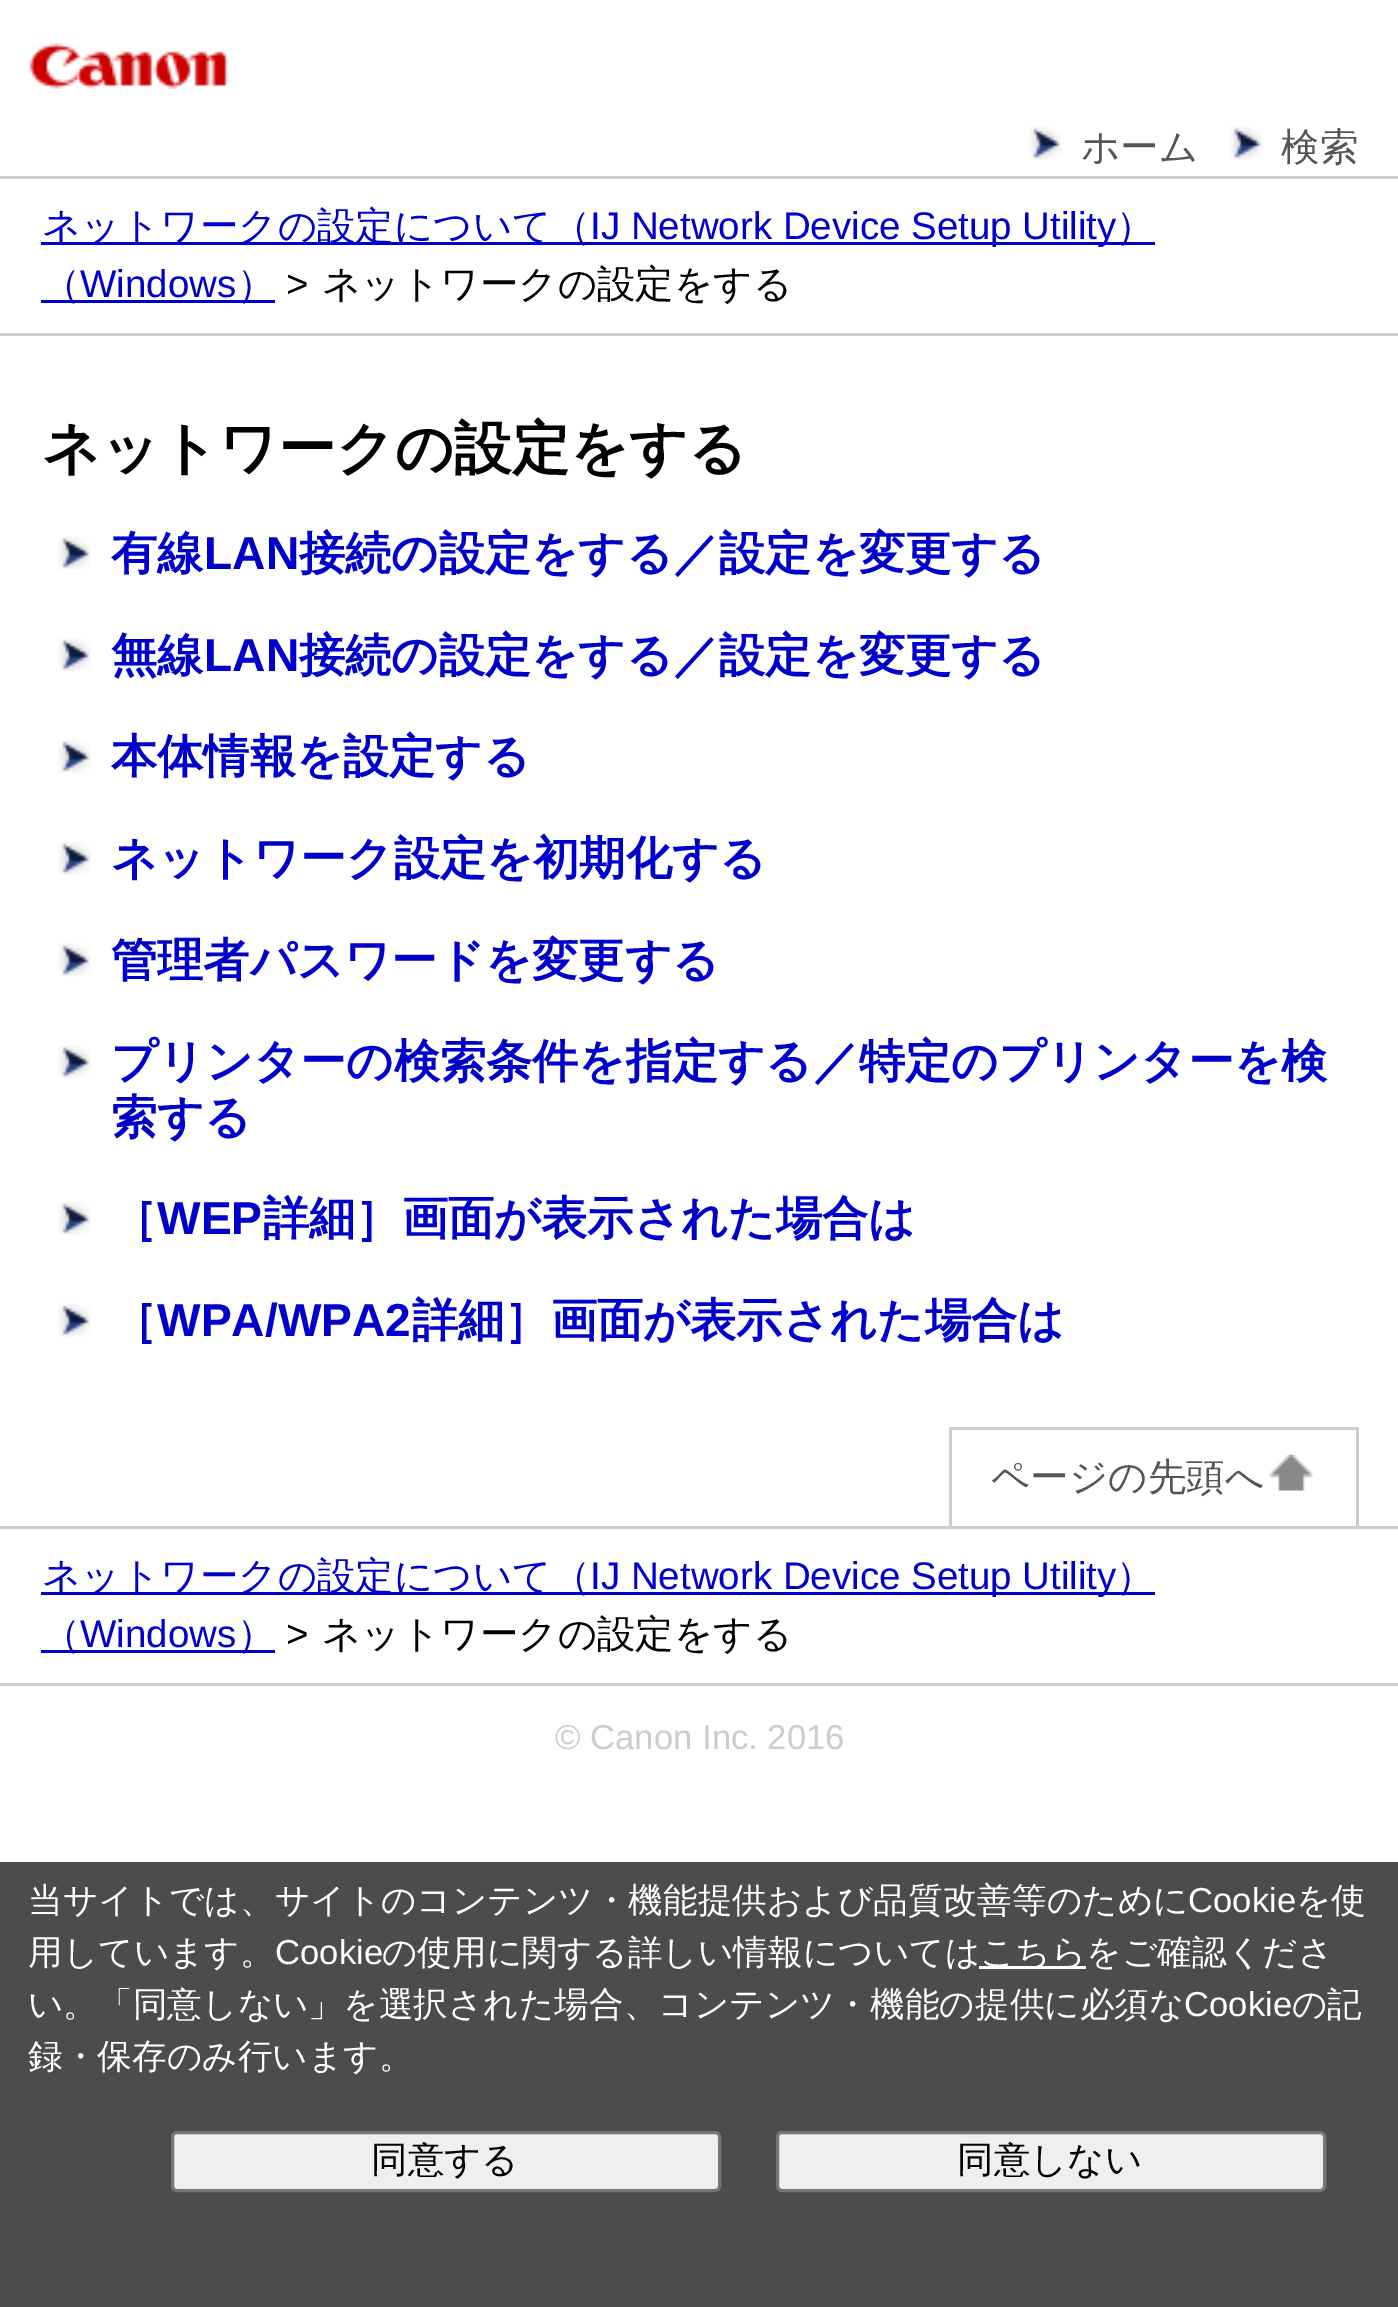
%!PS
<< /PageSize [1398 2307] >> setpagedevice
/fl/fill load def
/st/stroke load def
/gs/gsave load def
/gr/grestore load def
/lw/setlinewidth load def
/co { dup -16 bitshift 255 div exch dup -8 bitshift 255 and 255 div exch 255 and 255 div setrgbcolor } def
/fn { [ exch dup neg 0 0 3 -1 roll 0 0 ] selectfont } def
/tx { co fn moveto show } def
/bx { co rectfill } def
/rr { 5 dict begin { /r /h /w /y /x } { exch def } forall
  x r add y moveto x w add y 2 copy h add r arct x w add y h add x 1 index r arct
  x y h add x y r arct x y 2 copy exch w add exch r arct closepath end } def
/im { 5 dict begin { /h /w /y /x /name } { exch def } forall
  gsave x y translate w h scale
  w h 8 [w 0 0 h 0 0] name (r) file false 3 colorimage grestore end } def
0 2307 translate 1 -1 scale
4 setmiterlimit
0 0 1398 2307 16#FFFFFF bx
(media/1.raw) 29 43 198 46 im
0 333 1398 3 16#CCCCCC bx
(media/2.raw) 1029 126 33 34 im
(media/3.raw) 1229 126 33 34 im
0 176 1398 3 16#CCCCCC bx
41 242 1114 3 16#0000CC bx
41 300 234 3 16#0000CC bx
(media/4.raw) 58 536 33 34 im
(media/5.raw) 58 638 33 33 im
(media/6.raw) 58 740 33 33 im
(media/7.raw) 58 841 33 34 im
(media/4.raw) 58 943 33 34 im
(media/5.raw) 58 1045 33 33 im
(media/6.raw) 58 1202 33 33 im
(media/8.raw) 58 1303 33 34 im
0 1683 1398 3 16#CCCCCC bx
949 1427 410 3 16#CCCCCC bx
1356 1427 3 99 16#CCCCCC bx
949 1427 3 99 16#CCCCCC bx
(media/9.raw) 1268 1454 46 37 im
0 1526 1398 3 16#CCCCCC bx
41 1592 1114 3 16#0000CC bx
41 1650 234 3 16#0000CC bx
0 1862 1398 445 16#4C4C4C bx
979 1966 107 3 16#FFFFFF bx
16#EFEFEF co
172.5 2132.5 547 58 4.5 rr gs fl gr
16#767676 co
3 lw
st
16#EFEFEF co
777.5 2132.5 547 58 4.5 rr gs fl gr
16#767676 co
st
(ホーム) 1081 160 /WenQuanYiZenHei-Medium 38.5 16#555555 tx
(検索) 1281 160 /WenQuanYiZenHei-Medium 38.5 16#555555 tx
(ネットワークの設定について（) 42 239 /WenQuanYiZenHei-Medium 38.5 16#0000CC tx
(IJ Network Device Setup Utility) 590 239 /LiberationSans-Regular 38.5 16#0000CC tx
(）) 1116 239 /WenQuanYiZenHei-Medium 38.5 16#0000CC tx
(（) 42 297 /WenQuanYiZenHei-Medium 38.5 16#0000CC tx
(Windows) 80 297 /LiberationSans-Regular 38.5 16#0000CC tx
(）) 237 297 /WenQuanYiZenHei-Medium 38.5 16#0000CC tx
(>) 286 297 /LiberationSans-Regular 38.5 16#000000 tx
(ネットワークの設定をする) 322 297 /WenQuanYiZenHei-Medium 38.5 16#000000 tx
(ネットワークの設定をする) 42 468 /WenQuanYiZenHei-Bold 57.75 16#000000 tx
(有線) 111 569 /WenQuanYiZenHei-Bold 46.2 16#0000CC tx
(LAN) 204 569 /LiberationSans-Bold 46.2 16#0000CC tx
(接続の設定をする／設定を変更する) 299 569 /WenQuanYiZenHei-Bold 46.2 16#0000CC tx
(無線) 111 671 /WenQuanYiZenHei-Bold 46.2 16#0000CC tx
(LAN) 204 671 /LiberationSans-Bold 46.2 16#0000CC tx
(接続の設定をする／設定を変更する) 299 671 /WenQuanYiZenHei-Bold 46.2 16#0000CC tx
(本体情報を設定する) 111 772 /WenQuanYiZenHei-Bold 46.2 16#0000CC tx
(ネットワーク設定を初期化する) 111 874 /WenQuanYiZenHei-Bold 46.2 16#0000CC tx
(管理者パスワードを変更する) 111 976 /WenQuanYiZenHei-Bold 46.2 16#0000CC tx
(プリンターの検索条件を指定する／特定のプリンターを検) 111 1077 /WenQuanYiZenHei-Bold 46.2 16#0000CC tx
(索する) 111 1133 /WenQuanYiZenHei-Bold 46.2 16#0000CC tx
(［) 111 1234 /WenQuanYiZenHei-Bold 46.2 16#0000CC tx
(WEP) 157 1234 /LiberationSans-Bold 46.2 16#0000CC tx
(詳細］画面が表示された場合は) 263 1234 /WenQuanYiZenHei-Bold 46.2 16#0000CC tx
(［) 111 1336 /WenQuanYiZenHei-Bold 46.2 16#0000CC tx
(WPA/WPA2) 157 1336 /LiberationSans-Bold 46.2 16#0000CC tx
(詳細］画面が表示された場合は) 412 1336 /WenQuanYiZenHei-Bold 46.2 16#0000CC tx
(ページの先頭へ) 991 1490 /WenQuanYiZenHei-Medium 38.5 16#555555 tx
(ネットワークの設定について（) 42 1589 /WenQuanYiZenHei-Medium 38.5 16#0000CC tx
(IJ Network Device Setup Utility) 590 1589 /LiberationSans-Regular 38.5 16#0000CC tx
(）) 1116 1589 /WenQuanYiZenHei-Medium 38.5 16#0000CC tx
(（) 42 1647 /WenQuanYiZenHei-Medium 38.5 16#0000CC tx
(Windows) 80 1647 /LiberationSans-Regular 38.5 16#0000CC tx
(）) 237 1647 /WenQuanYiZenHei-Medium 38.5 16#0000CC tx
(>) 286 1647 /LiberationSans-Regular 38.5 16#000000 tx
(ネットワークの設定をする) 322 1647 /WenQuanYiZenHei-Medium 38.5 16#000000 tx
(© Canon Inc. 2016) 555 1749 /LiberationSans-Regular 34.65 16#CCCCCC tx
(当サイトでは、サイトのコンテンツ・機能提供および品質改善等のために) 28 1912 /WenQuanYiZenHei-Medium 34.65 16#FFFFFF tx
(Cookie) 1188 1912 /LiberationSans-Regular 34.65 16#FFFFFF tx
(を使) 1296 1912 /WenQuanYiZenHei-Medium 34.65 16#FFFFFF tx
(用しています。) 28 1964 /WenQuanYiZenHei-Medium 34.65 16#FFFFFF tx
(Cookie) 275 1964 /LiberationSans-Regular 34.65 16#FFFFFF tx
(の使用に関する詳しい情報については) 382 1964 /WenQuanYiZenHei-Medium 34.65 16#FFFFFF tx
(こちらをご確認くださ) 980 1964 /WenQuanYiZenHei-Medium 34.65 16#FFFFFF tx
(い。「同意しない」を選択された場合、コンテンツ・機能の提供に必須な) 28 2016 /WenQuanYiZenHei-Medium 34.65 16#FFFFFF tx
(Cookie) 1184 2016 /LiberationSans-Regular 34.65 16#FFFFFF tx
(の記) 1292 2016 /WenQuanYiZenHei-Medium 34.65 16#FFFFFF tx
(録・保存のみ行います。) 28 2068 /WenQuanYiZenHei-Medium 34.65 16#FFFFFF tx
(同意する) 371 2172 /WenQuanYiZenHei-Medium 36.5 16#000000 tx
(同意しない) 957 2172 /WenQuanYiZenHei-Medium 36.5 16#000000 tx
showpage
